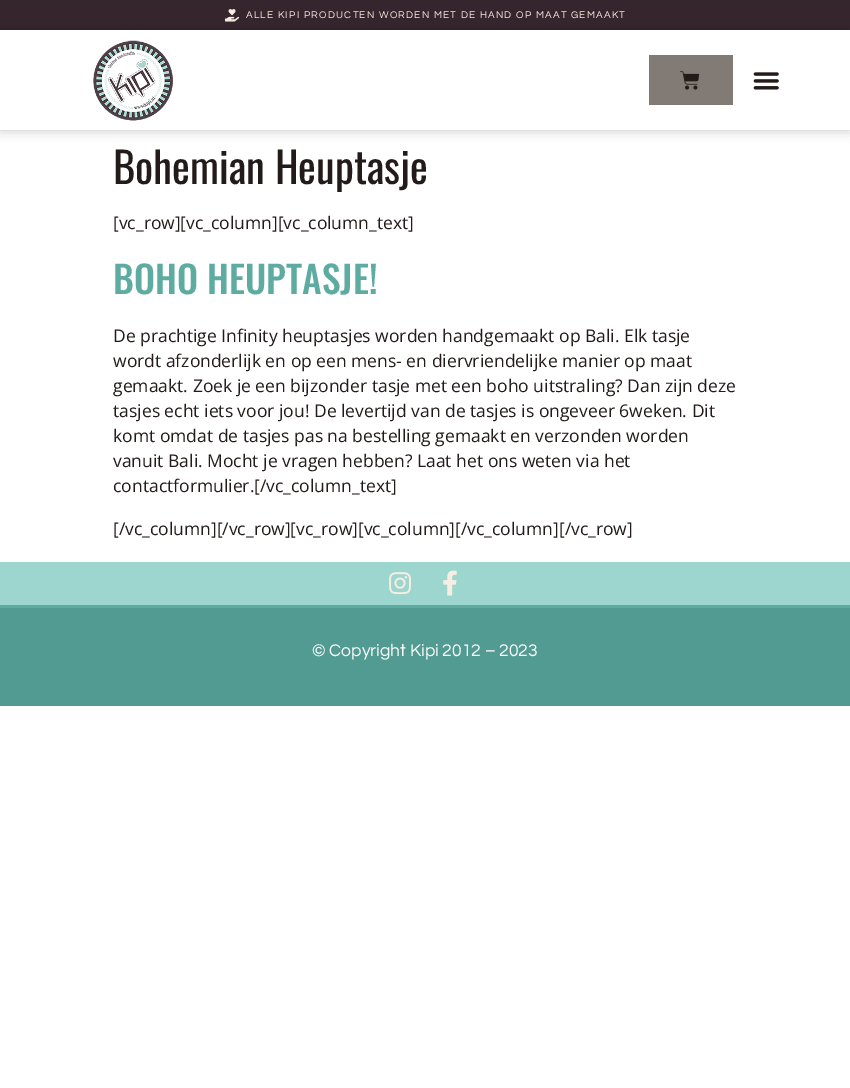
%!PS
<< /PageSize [850 1088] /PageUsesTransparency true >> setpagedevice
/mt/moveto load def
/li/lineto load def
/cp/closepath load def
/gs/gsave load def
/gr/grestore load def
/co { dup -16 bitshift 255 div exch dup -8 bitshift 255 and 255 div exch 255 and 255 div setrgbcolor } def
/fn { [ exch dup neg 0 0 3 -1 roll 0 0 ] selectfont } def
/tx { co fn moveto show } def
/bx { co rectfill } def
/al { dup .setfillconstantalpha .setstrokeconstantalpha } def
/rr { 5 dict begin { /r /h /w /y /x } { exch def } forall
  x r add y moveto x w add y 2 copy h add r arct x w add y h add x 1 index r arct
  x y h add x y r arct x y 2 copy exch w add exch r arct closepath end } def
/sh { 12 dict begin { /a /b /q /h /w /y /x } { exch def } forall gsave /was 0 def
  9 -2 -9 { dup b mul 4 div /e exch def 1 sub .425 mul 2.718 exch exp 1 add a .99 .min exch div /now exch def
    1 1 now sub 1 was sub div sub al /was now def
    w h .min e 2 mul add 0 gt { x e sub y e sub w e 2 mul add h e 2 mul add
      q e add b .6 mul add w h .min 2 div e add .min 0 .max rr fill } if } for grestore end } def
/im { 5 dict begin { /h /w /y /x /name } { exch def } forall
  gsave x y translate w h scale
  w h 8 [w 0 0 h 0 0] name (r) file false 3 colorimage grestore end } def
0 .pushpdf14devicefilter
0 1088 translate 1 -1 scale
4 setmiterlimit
0 0 850 1088 16#FFFFFF bx
0 0 850 30 16#35262D bx
(media/4.raw) 225 9 15 13 im
gs
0 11 mt 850 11 li 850 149 li 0 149 li cp 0 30 mt 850 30 li 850 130 li 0 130 li cp eoclip newpath
16#000000 co
0 30 850 100 0 6 .24 sh
gr
(media/1.raw) 93 40 80 81 im
649 55 84 50 16#827B75 bx
(media/2.raw) 680 71 20 19 im
(media/3.raw) 753 72 26 18 im
0 562 850 43 16#9DD6CF bx
(media/5.raw) 389 572 22 23 im
(media/6.raw) 443 570 14 26 im
0 608 850 98 16#529B92 bx
0 605 850 3 16#5EABA2 bx
/Questrial-Regular 10 fn
16#F7EEE3 co
246 18 mt 1.25 0 (ALLE KIPI PRODUCTEN WORDEN MET DE HAND OP MAAT GEMAAKT) ashow
(Bohemian Heuptasje) 113 184 /Oswald-Regular 42.5 16#221B19 tx
([vc_row][vc_column][vc_column_text]) 113 229 /OpenSans-Regular 17.5 16#221B19 tx
(BOHO HEUPTASJE!) 113 294 /Oswald-Medium 37.5 16#5EABA2 tx
(De prachtige Infinity heuptasjes worden handgemaakt op Bali. Elk tasje) 113 342 /OpenSans-Regular 17.5 16#221B19 tx
(wordt afzonderlijk en op een mens- en diervriendelijke manier op maat) 113 367 /OpenSans-Regular 17.5 16#221B19 tx
(gemaakt. Zoek je een bijzonder tasje met een boho uitstraling? Dan zijn deze) 113 392 /OpenSans-Regular 17.5 16#221B19 tx
(tasjes echt iets voor jou! De levertijd van de tasjes is ongeveer 6weken. Dit) 113 417 /OpenSans-Regular 17.5 16#221B19 tx
(komt omdat de tasjes pas na bestelling gemaakt en verzonden worden) 113 442 /OpenSans-Regular 17.5 16#221B19 tx
(vanuit Bali. Mocht je vragen hebben? Laat het ons weten via het) 113 467 /OpenSans-Regular 17.5 16#221B19 tx
(contactformulier.[/vc_column_text]) 113 492 /OpenSans-Regular 17.5 16#221B19 tx
([/vc_column][/vc_row][vc_row][vc_column][/vc_column][/vc_row]) 113 535 /OpenSans-Regular 17.5 16#221B19 tx
(© Copyright Kipi 2012 – 2023) 312 656 /Questrial-Regular 17.5 16#FFFFFF tx
.poppdf14devicefilter showpage
